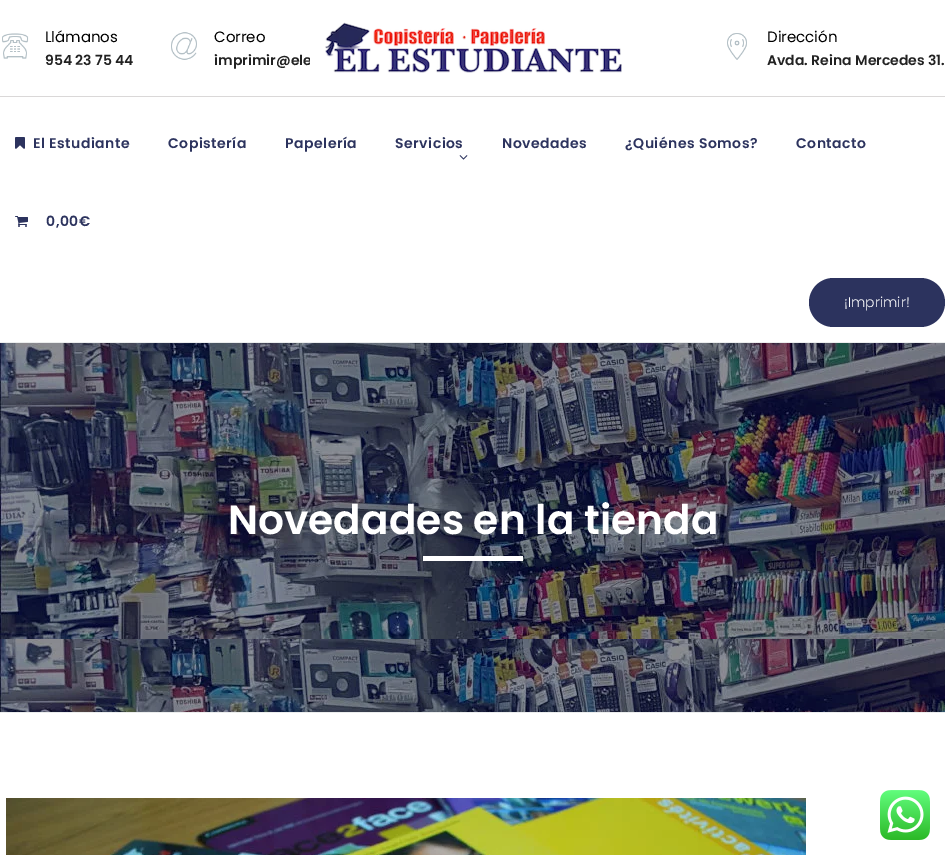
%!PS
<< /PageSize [945 855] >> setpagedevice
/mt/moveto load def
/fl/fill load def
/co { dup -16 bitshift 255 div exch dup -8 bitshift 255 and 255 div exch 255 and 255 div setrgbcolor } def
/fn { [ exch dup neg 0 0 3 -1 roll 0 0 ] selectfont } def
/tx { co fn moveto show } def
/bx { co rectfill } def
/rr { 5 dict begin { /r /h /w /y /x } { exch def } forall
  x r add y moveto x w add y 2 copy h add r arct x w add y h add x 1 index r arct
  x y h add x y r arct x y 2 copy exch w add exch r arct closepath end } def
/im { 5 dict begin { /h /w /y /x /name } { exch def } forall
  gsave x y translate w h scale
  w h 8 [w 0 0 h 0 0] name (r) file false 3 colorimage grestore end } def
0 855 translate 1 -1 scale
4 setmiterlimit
0 0 945 855 16#FFFFFF bx
0 96 945 1 16#DAD8D8 bx
(media/1.raw) 2 33 27 26 im
(media/2.raw) 171 32 26 28 im
(media/3.raw) 325 22 297 51 im
(media/4.raw) 727 33 20 27 im
(media/5.raw) 15 137 10 12 im
(media/6.raw) 459 155 9 5 im
(media/7.raw) 15 216 13 11 im
16#2C335E co
809 278 136 49 24.5 rr fl
(media/8.raw) 0 343 945 369 im
0 342 945 1 16#EBEDED bx
0 712 945 1 16#EBEDED bx
423 556 100 5 16#FFFFFF bx
(media/9.raw) 6 798 800 57 im
(media/10.raw) 880 790 50 50 im
(Llámanos) 45 42 /Poppins-Regular 15 16#000000 tx
(954 23 75 44) 45 65 /Poppins-SemiBold 14 16#222222 tx
(Correo) 214 42 /Poppins-Regular 15 16#000000 tx
(imprimir@ele) 214 65 /Poppins-SemiBold 14 16#222222 tx
310 57 2 8 16#FFFFFF bx
(Dirección) 767 42 /Poppins-Regular 15 16#000000 tx
(Avda. Reina Mercedes 31.) 767 65 /Poppins-SemiBold 14 16#222222 tx
16#2C335E co
33 148 mt .5 0 (El Estudiante) ashow
168 148 mt .5 0 (Copistería) ashow
285 148 mt .5 0 (Papelería) ashow
395 148 mt .5 0 (Servicios) ashow
502 148 mt .5 0 (Novedades) ashow
625 148 mt .5 0 (¿Quiénes Somos?) ashow
796 148 mt .5 0 (Contacto) ashow
46 226 mt .5 0 (0,00€) ashow
(¡Imprimir!) 844 307 /Poppins-Light 14 16#FFFFFF tx
(Novedades en la tienda) 228 534 /Poppins-SemiBold 40.75 16#FFFFFF tx
showpage
